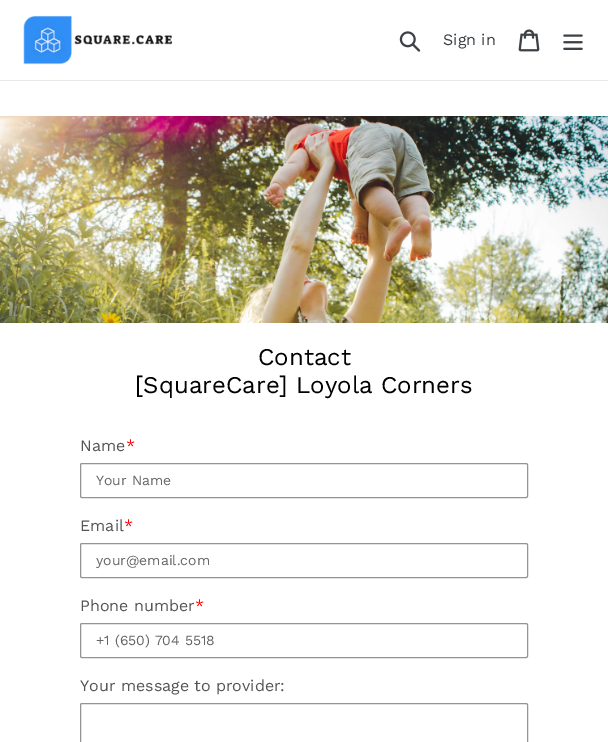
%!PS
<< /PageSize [608 742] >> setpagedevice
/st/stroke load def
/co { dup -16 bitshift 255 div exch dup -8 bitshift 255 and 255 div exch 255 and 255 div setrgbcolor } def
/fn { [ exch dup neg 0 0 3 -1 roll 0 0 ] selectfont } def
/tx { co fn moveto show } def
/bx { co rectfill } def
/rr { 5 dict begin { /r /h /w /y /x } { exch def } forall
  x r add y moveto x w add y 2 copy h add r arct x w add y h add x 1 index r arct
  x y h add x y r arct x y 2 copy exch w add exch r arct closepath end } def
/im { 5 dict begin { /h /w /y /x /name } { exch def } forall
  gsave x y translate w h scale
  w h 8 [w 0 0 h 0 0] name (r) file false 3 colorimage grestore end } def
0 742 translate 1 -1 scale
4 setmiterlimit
0 0 608 742 16#FFFFFF bx
0 80 608 1 16#E8E9EB bx
(media/1.raw) 23 15 149 50 im
(media/2.raw) 399 31 22 21 im
(media/3.raw) 518 29 22 23 im
(media/4.raw) 563 34 20 16 im
(media/5.raw) 0 116 608 207 im
16#949494 co
80.5 463.5 447 34 1.5 rr st
80.5 543.5 447 34 1.5 rr st
80.5 623.5 447 34 1.5 rr st
80.5 703.5 447 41 1.5 rr st
(Sign in) 443 45 /WorkSans-Regular 16 16#3D4246 tx
(Contact) 258 365 /WorkSans-Regular 24 16#000000 tx
([SquareCare] Loyola Corners) 135 393 /WorkSans-Regular 24 16#000000 tx
(Name) 80 451 /WorkSans-Regular 16 16#555555 tx
(*) 126 451 /WorkSans-Regular 16 16#FF0000 tx
(Your Name) 96 485 /WorkSans-Regular 14 16#666666 tx
(Email) 80 531 /WorkSans-Regular 16 16#555555 tx
(*) 124 531 /WorkSans-Regular 16 16#FF0000 tx
(your@email.com) 96 565 /WorkSans-Regular 14 16#666666 tx
(Phone number) 80 611 /WorkSans-Regular 16 16#555555 tx
(*) 195 611 /WorkSans-Regular 16 16#FF0000 tx
(+1 \(650\) 704 5518) 96 645 /WorkSans-Regular 14 16#666666 tx
(Your message to provider:) 80 691 /WorkSans-Regular 16 16#555555 tx
showpage
